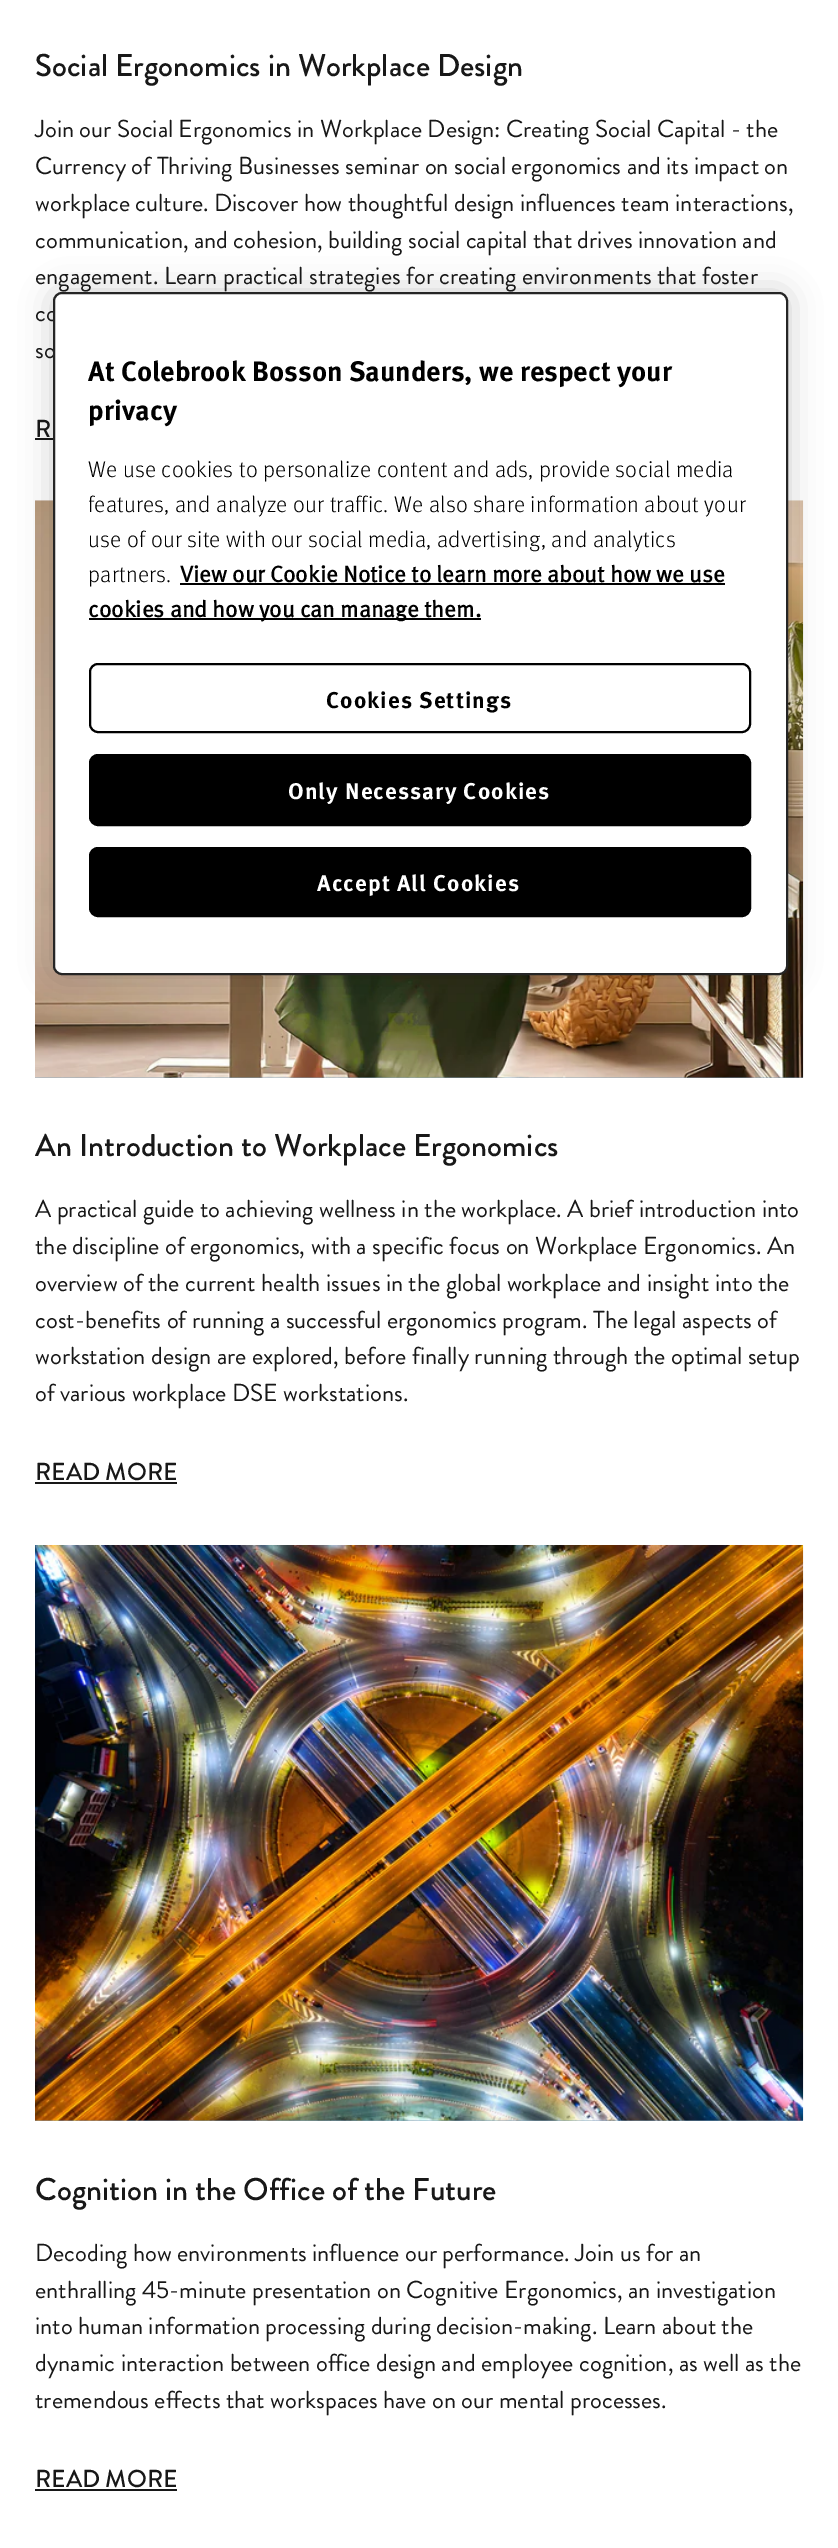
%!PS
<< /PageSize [838 2548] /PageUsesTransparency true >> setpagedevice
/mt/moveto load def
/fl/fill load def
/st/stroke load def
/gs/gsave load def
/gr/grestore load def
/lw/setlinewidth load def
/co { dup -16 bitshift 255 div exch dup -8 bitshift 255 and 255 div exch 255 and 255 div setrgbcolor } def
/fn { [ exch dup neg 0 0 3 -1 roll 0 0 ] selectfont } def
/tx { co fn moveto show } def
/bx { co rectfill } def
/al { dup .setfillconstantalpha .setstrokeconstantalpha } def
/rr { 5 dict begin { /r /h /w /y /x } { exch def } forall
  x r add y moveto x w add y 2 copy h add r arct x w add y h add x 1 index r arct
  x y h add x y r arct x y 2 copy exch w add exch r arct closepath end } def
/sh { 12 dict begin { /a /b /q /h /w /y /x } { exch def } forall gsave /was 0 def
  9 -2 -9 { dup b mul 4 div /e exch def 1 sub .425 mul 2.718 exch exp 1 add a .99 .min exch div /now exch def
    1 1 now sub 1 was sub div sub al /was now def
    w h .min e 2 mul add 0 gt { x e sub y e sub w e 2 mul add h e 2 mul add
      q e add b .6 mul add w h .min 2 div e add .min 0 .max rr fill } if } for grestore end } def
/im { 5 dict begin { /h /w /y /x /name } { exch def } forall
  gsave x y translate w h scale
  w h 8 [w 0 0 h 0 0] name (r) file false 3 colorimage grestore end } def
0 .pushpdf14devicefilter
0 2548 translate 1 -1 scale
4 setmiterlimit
0 0 838 2548 16#FFFFFF bx
35 438 18 2 16#181818 bx
35 1077 768 1 16#85A5BD bx
(media/1.raw) 35 500 769 578 im
35 1482 142 2 16#181818 bx
35 2120 768 1 16#85A5BD bx
(media/2.raw) 35 1545 769 576 im
35 2489 142 2 16#181818 bx
16#000000 co
53 292 735 683 9 16 .2 sh
(Social Ergonomics in Workplace Design) 35 76 /BrandonGrotesque-Medium 31.5 16#181818 tx
(Join our Social Ergonomics in Workplace Design: Creating Social Capital - the) 35 137 /BrandonGrotesque-Regular 24.5 16#181818 tx
(Currency of Thriving Businesses seminar on social ergonomics and its impact on) 35 174 /BrandonGrotesque-Regular 24.5 16#181818 tx
(workplace culture. Discover how thoughtful design influences team interactions,) 35 211 /BrandonGrotesque-Regular 24.5 16#181818 tx
(communication, and cohesion, building social capital that drives innovation and) 35 248 /BrandonGrotesque-Regular 24.5 16#181818 tx
(engagement. Learn practical strategies for creating environments that foster) 35 284 /BrandonGrotesque-Regular 24.5 16#181818 tx
(co) 35 321 /BrandonGrotesque-Regular 24.5 16#181818 tx
(so) 35 358 /BrandonGrotesque-Regular 24.5 16#181818 tx
(R) 35 437 /BrandonGrotesque-Medium 24.5 16#181818 tx
(An Introduction to Workplace Ergonomics) 35 1156 /BrandonGrotesque-Medium 31.5 16#181818 tx
(A practical guide to achieving wellness in the workplace. A brief introduction into) 35 1217 /BrandonGrotesque-Regular 24.5 16#181818 tx
(the discipline of ergonomics, with a specific focus on Workplace Ergonomics. An) 35 1254 /BrandonGrotesque-Regular 24.5 16#181818 tx
(overview of the current health issues in the global workplace and insight into the) 35 1291 /BrandonGrotesque-Regular 24.5 16#181818 tx
(cost-benefits of running a successful ergonomics program. The legal aspects of) 35 1328 /BrandonGrotesque-Regular 24.5 16#181818 tx
(workstation design are explored, before finally running through the optimal setup) 35 1364 /BrandonGrotesque-Regular 24.5 16#181818 tx
(of various workplace DSE workstations.) 35 1401 /BrandonGrotesque-Regular 24.5 16#181818 tx
(READ MORE) 35 1480 /BrandonGrotesque-Medium 24.5 16#181818 tx
(Cognition in the Office of the Future) 35 2200 /BrandonGrotesque-Medium 31.5 16#181818 tx
(Decoding how environments influence our performance. Join us for an) 35 2261 /BrandonGrotesque-Regular 24.5 16#181818 tx
(enthralling 45-minute presentation on Cognitive Ergonomics, an investigation) 35 2298 /BrandonGrotesque-Regular 24.5 16#181818 tx
(into human information processing during decision-making. Learn about the) 35 2334 /BrandonGrotesque-Regular 24.5 16#181818 tx
(dynamic interaction between office design and employee cognition, as well as the) 35 2371 /BrandonGrotesque-Regular 24.5 16#181818 tx
(tremendous effects that workspaces have on our mental processes.) 35 2408 /BrandonGrotesque-Regular 24.5 16#181818 tx
(READ MORE) 35 2487 /BrandonGrotesque-Medium 24.5 16#181818 tx
16#FFFFFF co
54 293 733 681 8 rr gs fl gr
16#252525 co
2 lw
st
(At Colebrook Bosson Saunders, we respect your) 88 381 /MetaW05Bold-Bold 28 16#000000 tx
(privacy) 88 420 /MetaW05Bold-Bold 28 16#000000 tx
/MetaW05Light-Light 22.75 fn
88 477 mt .23 0 (We use cookies to personalize content and ads, provide social media) ashow
88 512 mt .23 0 (features, and analyze our traffic. We also share information about your) ashow
88 547 mt .23 0 (use of our site with our social media, advertising, and analytics) ashow
88 582 mt .23 0 (partners.) ashow
(View our Cookie Notice to learn more about how we use) 180 582 /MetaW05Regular-Bold 22.75 16#000000 tx
180 583 545 2 16#000000 bx
89 618 392 2 16#000000 bx
(cookies and how you can manage them.) 88 617 /MetaW05Regular-Bold 22.75 16#000000 tx
90 664 660 68 8 rr st
/MetaW05Bold-Bold 22.75 fn
326 708 mt 1.1 0 (Cookies Settings) ashow
90 755 660 70 8 rr gs fl gr
st
16#FFFFFF co
288 799 mt 1.1 0 (Only Necessary Cookies) ashow
16#000000 co
90 848 660 68 8 rr gs fl gr
st
16#FFFFFF co
317 891 mt 1.1 0 (Accept All Cookies) ashow
.poppdf14devicefilter showpage
